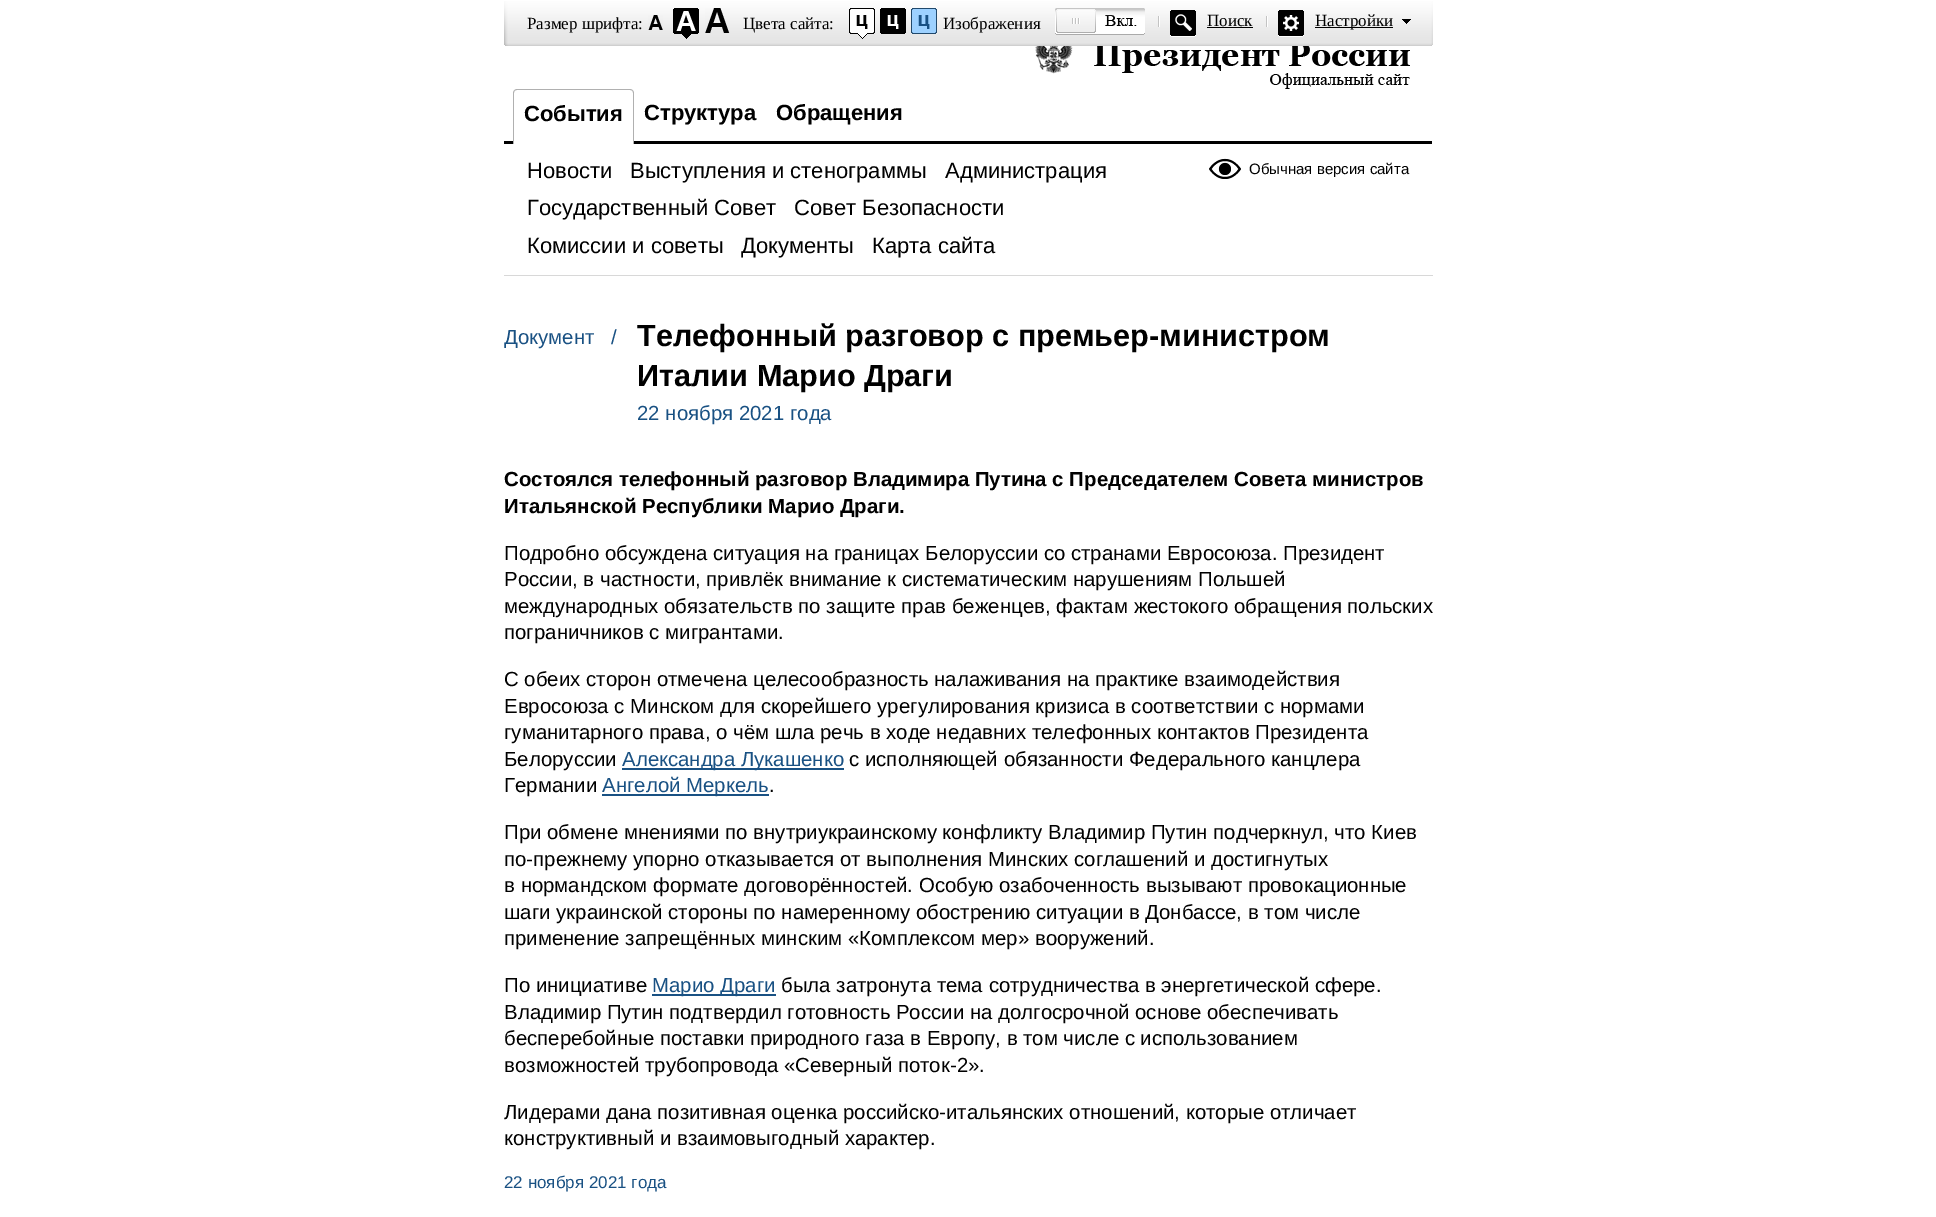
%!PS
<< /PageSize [1936 1217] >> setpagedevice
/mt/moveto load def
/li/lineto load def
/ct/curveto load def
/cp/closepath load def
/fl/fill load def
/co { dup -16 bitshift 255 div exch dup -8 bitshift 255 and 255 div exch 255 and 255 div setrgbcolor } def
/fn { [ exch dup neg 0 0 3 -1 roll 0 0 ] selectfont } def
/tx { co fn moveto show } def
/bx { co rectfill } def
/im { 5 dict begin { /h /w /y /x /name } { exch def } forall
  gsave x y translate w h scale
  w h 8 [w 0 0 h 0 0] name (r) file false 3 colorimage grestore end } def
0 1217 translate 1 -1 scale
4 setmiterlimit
0 0 1936 1217 16#FFFFFF bx
(media/1.raw) 504 1 929 45 im
(media/2.raw) 648 15 15 15 im
(media/3.raw) 673 8 26 31 im
(media/4.raw) 705 8 25 25 im
(media/5.raw) 849 8 26 31 im
(media/6.raw) 880 8 26 26 im
(media/7.raw) 911 8 26 26 im
(media/8.raw) 1055 8 90 27 im
(media/9.raw) 1158 10 38 27 im
1207 27 46 1 16#000000 bx
(media/10.raw) 1266 10 38 27 im
1315 27 78 1 16#000000 bx
(media/11.raw) 1402 19 9 5 im
(media/12.raw) 1035 46 375 43 im
504 275 929 1 16#D8D8D8 bx
504 141 928 3 16#000000 bx
16#FFFFFF co
517 89 mt 630 89 li 632 89 634 91 634 93 ct 634 144 li 513 144 li 513 93 li 513 91 515 89 517 89 ct cp fl
16#B0B0B0 co
517 89 mt 630 89 li 632 89 634 91 634 93 ct 634 144 li 513 144 li 513 93 li 513 91 515 89 517 89 ct cp 517 90 mt 630 90 li 632 90 633 91 633 93 ct 633 144 li 514 144 li 514 93 li 514 91 515 90 517 90 ct cp eofill
(media/13.raw) 1209 158 32 21 im
622 768 222 2 16#195183 bx
602 794 167 2 16#195183 bx
652 994 124 2 16#195183 bx
(Размер шрифта:) 527 29 /LiberationSerif-Regular 17 16#000000 tx
(Цвета сайта:) 743 29 /LiberationSerif-Regular 17 16#000000 tx
(Изображения) 943 29 /LiberationSerif-Regular 17 16#000000 tx
(Поиск) 1207 26 /LiberationSerif-Regular 17 16#000000 tx
(Настройки) 1315 26 /LiberationSerif-Regular 17 16#000000 tx
(События) 524 121 /LiberationSans-Bold 22 16#000000 tx
(Структура) 644 120 /LiberationSans-Bold 22 16#000000 tx
(Обращения) 776 120 /LiberationSans-Bold 22 16#000000 tx
(Новости) 527 178 /LiberationSans-Regular 22 16#000000 tx
(Выступления и стенограммы) 630 178 /LiberationSans-Regular 22 16#000000 tx
(Администрация) 945 178 /LiberationSans-Regular 22 16#000000 tx
(Государственный Совет) 527 215 /LiberationSans-Regular 22 16#000000 tx
(Совет Безопасности) 794 215 /LiberationSans-Regular 22 16#000000 tx
(Комиссии и советы) 527 253 /LiberationSans-Regular 22 16#000000 tx
(Документы) 741 253 /LiberationSans-Regular 22 16#000000 tx
(Карта сайта) 872 253 /LiberationSans-Regular 22 16#000000 tx
(Обычная версия сайта) 1249 174 /LiberationSans-Regular 15 16#000000 tx
(Документ) 504 344 /LiberationSans-Regular 20.4 16#195183 tx
(/) 611 344 /LiberationSans-Regular 20.4 16#195183 tx
(Телефонный разговор с премьер-министром) 637 346 /LiberationSans-Bold 30.6 16#000000 tx
(Италии Марио Драги) 637 386 /LiberationSans-Bold 30.6 16#000000 tx
(22 ноября 2021 года) 637 420 /LiberationSans-Regular 20.4 16#195183 tx
(Состоялся телефонный разговор Владимира Путина с Председателем Совета министров) 504 486 /LiberationSans-Bold 20.4 16#000000 tx
(Итальянской Республики Марио Драги.) 504 513 /LiberationSans-Bold 20.4 16#000000 tx
(Подробно обсуждена ситуация на границах Белоруссии со странами Евросоюза. Президент) 504 560 /LiberationSans-Regular 20.4 16#000000 tx
(России, в частности, привлёк внимание к систематическим нарушениям Польшей) 504 586 /LiberationSans-Regular 20.4 16#000000 tx
(международных обязательств по защите прав беженцев, фактам жестокого обращения польских) 504 613 /LiberationSans-Regular 20.4 16#000000 tx
(пограничников с мигрантами.) 504 639 /LiberationSans-Regular 20.4 16#000000 tx
(С обеих сторон отмечена целесообразность налаживания на практике взаимодействия) 504 686 /LiberationSans-Regular 20.4 16#000000 tx
(Евросоюза с Минском для скорейшего урегулирования кризиса в соответствии с нормами) 504 713 /LiberationSans-Regular 20.4 16#000000 tx
(гуманитарного права, о чём шла речь в ходе недавних телефонных контактов Президента) 504 739 /LiberationSans-Regular 20.4 16#000000 tx
(Белоруссии) 504 766 /LiberationSans-Regular 20.4 16#000000 tx
(Александра Лукашенко) 622 766 /LiberationSans-Regular 20.4 16#195183 tx
(с исполняющей обязанности Федерального канцлера) 849 766 /LiberationSans-Regular 20.4 16#000000 tx
(Германии) 504 792 /LiberationSans-Regular 20.4 16#000000 tx
(Ангелой Меркель) 602 792 /LiberationSans-Regular 20.4 16#195183 tx
(.) 769 792 /LiberationSans-Regular 20.4 16#000000 tx
(При обмене мнениями по внутриукраинскому конфликту Владимир Путин подчеркнул, что Киев) 504 839 /LiberationSans-Regular 20.4 16#000000 tx
(по-прежнему упорно отказывается от выполнения Минских соглашений и достигнутых) 504 866 /LiberationSans-Regular 20.4 16#000000 tx
(в нормандском формате договорённостей. Особую озабоченность вызывают провокационные) 504 892 /LiberationSans-Regular 20.4 16#000000 tx
(шаги украинской стороны по намеренному обострению ситуации в Донбассе, в том числе) 504 919 /LiberationSans-Regular 20.4 16#000000 tx
(применение запрещённых минским «Комплексом мер» вооружений.) 504 945 /LiberationSans-Regular 20.4 16#000000 tx
(По инициативе) 504 992 /LiberationSans-Regular 20.4 16#000000 tx
(Марио Драги) 652 992 /LiberationSans-Regular 20.4 16#195183 tx
(была затронута тема сотрудничества в энергетической сфере.) 781 992 /LiberationSans-Regular 20.4 16#000000 tx
(Владимир Путин подтвердил готовность России на долгосрочной основе обеспечивать) 504 1019 /LiberationSans-Regular 20.4 16#000000 tx
(бесперебойные поставки природного газа в Европу, в том числе с использованием) 504 1045 /LiberationSans-Regular 20.4 16#000000 tx
(возможностей трубопровода «Северный поток-2».) 504 1072 /LiberationSans-Regular 20.4 16#000000 tx
(Лидерами дана позитивная оценка российско-итальянских отношений, которые отличает) 504 1119 /LiberationSans-Regular 20.4 16#000000 tx
(конструктивный и взаимовыгодный характер.) 504 1145 /LiberationSans-Regular 20.4 16#000000 tx
(22 ноября 2021 года) 504 1188 /LiberationSans-Regular 17 16#195183 tx
showpage
